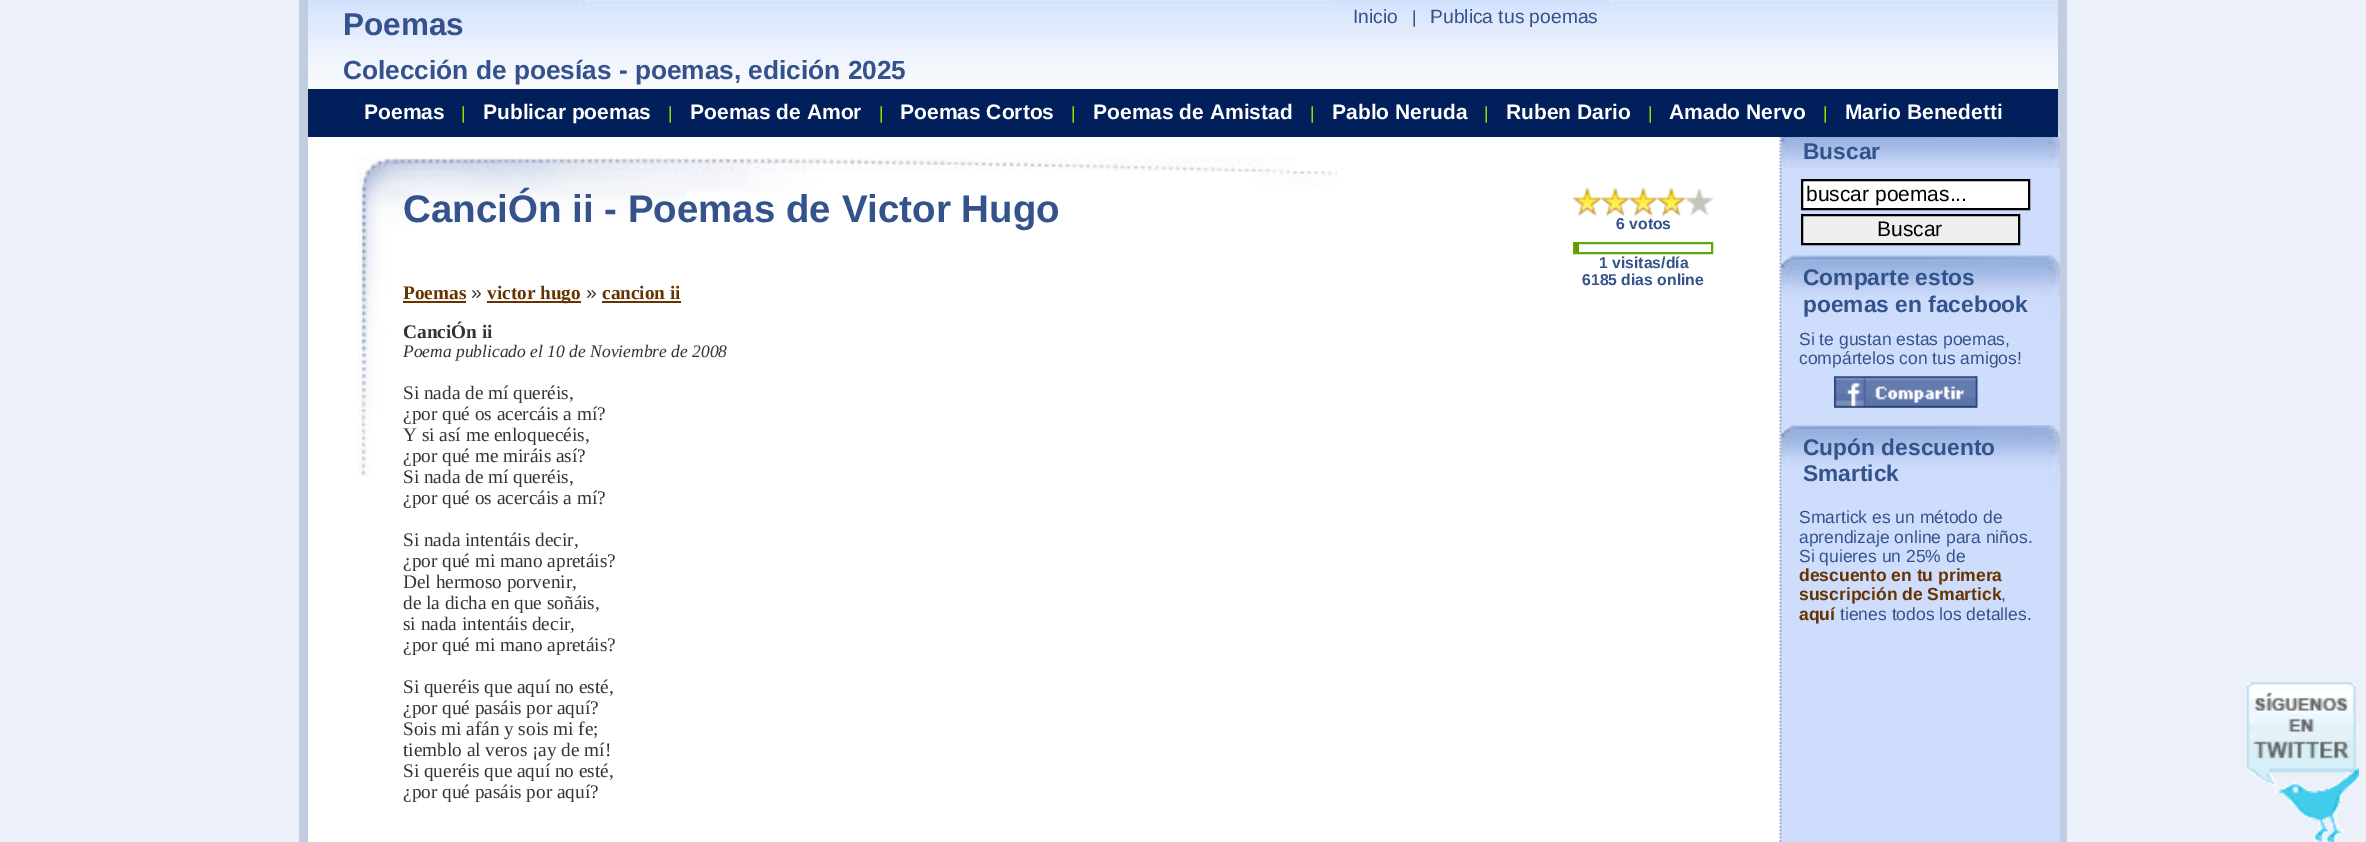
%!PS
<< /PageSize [2366 842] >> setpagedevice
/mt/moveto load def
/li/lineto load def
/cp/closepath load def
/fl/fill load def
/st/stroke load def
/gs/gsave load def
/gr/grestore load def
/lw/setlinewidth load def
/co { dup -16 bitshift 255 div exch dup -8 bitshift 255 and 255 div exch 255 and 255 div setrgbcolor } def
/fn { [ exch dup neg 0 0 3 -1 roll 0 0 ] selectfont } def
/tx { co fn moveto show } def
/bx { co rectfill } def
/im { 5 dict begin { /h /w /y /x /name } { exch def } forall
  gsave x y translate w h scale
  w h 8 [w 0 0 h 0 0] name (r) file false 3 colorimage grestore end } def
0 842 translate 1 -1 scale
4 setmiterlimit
0 0 2366 842 16#ECF0F8 bx
308 137 1472 705 16#FFFFFF bx
16#C1CCE1 co
2067 0 mt 2067 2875 li 2058 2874 li 2058 0 li cp fl
299 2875 mt 299 0 li 308 0 li 308 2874 li cp fl
(media/1.raw) 308 0 1750 89 im
1780 130 280 712 16#CEDDFC bx
16#A0ACC2 co
1.8 lw
[1.75 1.75] 0 setdash
1780.5 129.5 mt 1780.5 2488.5 li st
(media/2.raw) 1781 129 279 39 im
16#FFFFFF co
1802 180 mt 2029 180 li 2029 209 li 1802 209 li cp gs fl gr
16#000000 co
2 lw
[] 0 setdash
st
16#EFEFEF co
1802 215 mt 2019 215 li 2019 244 li 1802 244 li cp gs fl gr
16#000000 co
st
(media/3.raw) 1781 255 279 65 im
(media/4.raw) 1834 376 144 32 im
(media/5.raw) 1781 425 279 65 im
308 89 1750 48 16#011F5B bx
(media/6.raw) 357 157 981 319 im
(media/7.raw) 1573 187 29 29 im
(media/8.raw) 1601 187 29 29 im
(media/9.raw) 1629 187 29 29 im
(media/9.raw) 1657 187 29 29 im
(media/10.raw) 1685 188 29 28 im
16#5EAA05 co
1574 243 138 10 rectstroke
1575 243 4 9 16#669900 bx
403 301 63 2 16#663300 bx
487 301 94 2 16#663300 bx
602 301 79 2 16#663300 bx
(media/11.raw) 2247 682 112 160 im
(media/12.raw) 2249 682 110 160 im
(Inicio) 1353 23 /LiberationSans-Regular 19.25 16#34538C tx
(|) 1412 23 /LiberationSans-Regular 17.5 16#34538C tx
(Publica tus poemas) 1430 23 /LiberationSans-Regular 19.25 16#34538C tx
(Poemas) 343 35 /LiberationSans-Bold 31.5 16#34538C tx
(Colección de poesías - poemas, edición 2025) 343 79 /LiberationSans-Bold 26.25 16#34538C tx
(Buscar) 1803 159 /LiberationSans-Bold 22.75 16#34538C tx
(buscar poemas...) 1806 201 /LiberationSans-Regular 21 16#000000 tx
(Buscar) 1877 236 /LiberationSans-Regular 21 16#000000 tx
(Comparte estos) 1803 285 /LiberationSans-Bold 22.75 16#34538C tx
(poemas en facebook) 1803 312 /LiberationSans-Bold 22.75 16#34538C tx
(Si te gustan estas poemas,) 1799 345 /LiberationSans-Regular 17.5 16#34538C tx
(compártelos con tus amigos!) 1799 364 /LiberationSans-Regular 17.5 16#34538C tx
(Cupón descuento) 1803 455 /LiberationSans-Bold 22.75 16#34538C tx
(Smartick) 1803 481 /LiberationSans-Bold 22.75 16#34538C tx
(Smartick es un método de) 1799 523 /LiberationSans-Regular 17.5 16#34538C tx
(aprendizaje online para niños.) 1799 543 /LiberationSans-Regular 17.5 16#34538C tx
(Si quieres un 25% de) 1799 562 /LiberationSans-Regular 17.5 16#34538C tx
(descuento en tu primera) 1799 581 /LiberationSans-Bold 17.5 16#663300 tx
(suscripción de Smartick) 1799 600 /LiberationSans-Bold 17.5 16#663300 tx
(,) 2001 600 /LiberationSans-Regular 17.5 16#34538C tx
(aquí) 1799 620 /LiberationSans-Bold 17.5 16#663300 tx
(tienes todos los detalles.) 1840 620 /LiberationSans-Regular 17.5 16#34538C tx
(Poemas) 364 119 /LiberationSans-Bold 21 16#FFFFFF tx
(|) 461 119 /LiberationSans-Regular 17.5 16#9DD900 tx
(Publicar poemas) 483 119 /LiberationSans-Bold 21 16#FFFFFF tx
(|) 668 119 /LiberationSans-Regular 17.5 16#9DD900 tx
(Poemas de Amor) 690 119 /LiberationSans-Bold 21 16#FFFFFF tx
(|) 879 119 /LiberationSans-Regular 17.5 16#9DD900 tx
(Poemas Cortos) 900 119 /LiberationSans-Bold 21 16#FFFFFF tx
(|) 1071 119 /LiberationSans-Regular 17.5 16#9DD900 tx
(Poemas de Amistad) 1093 119 /LiberationSans-Bold 21 16#FFFFFF tx
(|) 1310 119 /LiberationSans-Regular 17.5 16#9DD900 tx
(Pablo Neruda) 1332 119 /LiberationSans-Bold 21 16#FFFFFF tx
(|) 1484 119 /LiberationSans-Regular 17.5 16#9DD900 tx
(Ruben Dario) 1506 119 /LiberationSans-Bold 21 16#FFFFFF tx
(|) 1648 119 /LiberationSans-Regular 17.5 16#9DD900 tx
(Amado Nervo) 1669 119 /LiberationSans-Bold 21 16#FFFFFF tx
(|) 1823 119 /LiberationSans-Regular 17.5 16#9DD900 tx
(Mario Benedetti) 1845 119 /LiberationSans-Bold 21 16#FFFFFF tx
(CanciÓn ii - Poemas de Victor Hugo) 403 222 /LiberationSans-Bold 38.5 16#34538C tx
(6 votos) 1616 229 /LiberationSans-Bold 15.75 16#34538C tx
(1 visitas/día) 1599 268 /LiberationSans-Bold 15.75 16#34538C tx
(6185 dias online) 1582 285 /LiberationSans-Bold 15.75 16#34538C tx
(Poemas) 403 299 /LiberationSerif-Bold 19.25 16#663300 tx
(») 471 299 /LiberationSans-Regular 19.25 16#333333 tx
(victor hugo) 487 299 /LiberationSerif-Bold 19.25 16#663300 tx
(») 586 299 /LiberationSans-Regular 19.25 16#333333 tx
(cancion ii) 602 299 /LiberationSerif-Bold 19.25 16#663300 tx
(CanciÓn ii) 403 338 /LiberationSerif-Bold 19.25 16#333333 tx
(Poema publicado el 10 de Noviembre de 2008) 403 357 /LiberationSerif-Italic 17.5 16#333333 tx
(Si nada de mí queréis,) 403 399 /LiberationSerif-Regular 19.25 16#333333 tx
(¿por qué os acercáis a mí?) 403 420 /LiberationSerif-Regular 19.25 16#333333 tx
(Y si así me enloquecéis,) 403 441 /LiberationSerif-Regular 19.25 16#333333 tx
(¿por qué me miráis así?) 403 462 /LiberationSerif-Regular 19.25 16#333333 tx
(Si nada de mí queréis,) 403 483 /LiberationSerif-Regular 19.25 16#333333 tx
(¿por qué os acercáis a mí?) 403 504 /LiberationSerif-Regular 19.25 16#333333 tx
(Si nada intentáis decir,) 403 546 /LiberationSerif-Regular 19.25 16#333333 tx
(¿por qué mi mano apretáis?) 403 567 /LiberationSerif-Regular 19.25 16#333333 tx
(Del hermoso porvenir,) 403 588 /LiberationSerif-Regular 19.25 16#333333 tx
(de la dicha en que soñáis,) 403 609 /LiberationSerif-Regular 19.25 16#333333 tx
(si nada intentáis decir,) 403 630 /LiberationSerif-Regular 19.25 16#333333 tx
(¿por qué mi mano apretáis?) 403 651 /LiberationSerif-Regular 19.25 16#333333 tx
(Si queréis que aquí no esté,) 403 693 /LiberationSerif-Regular 19.25 16#333333 tx
(¿por qué pasáis por aquí?) 403 714 /LiberationSerif-Regular 19.25 16#333333 tx
(Sois mi afán y sois mi fe;) 403 735 /LiberationSerif-Regular 19.25 16#333333 tx
(tiemblo al veros ¡ay de mí!) 403 756 /LiberationSerif-Regular 19.25 16#333333 tx
(Si queréis que aquí no esté,) 403 777 /LiberationSerif-Regular 19.25 16#333333 tx
(¿por qué pasáis por aquí?) 403 798 /LiberationSerif-Regular 19.25 16#333333 tx
showpage
